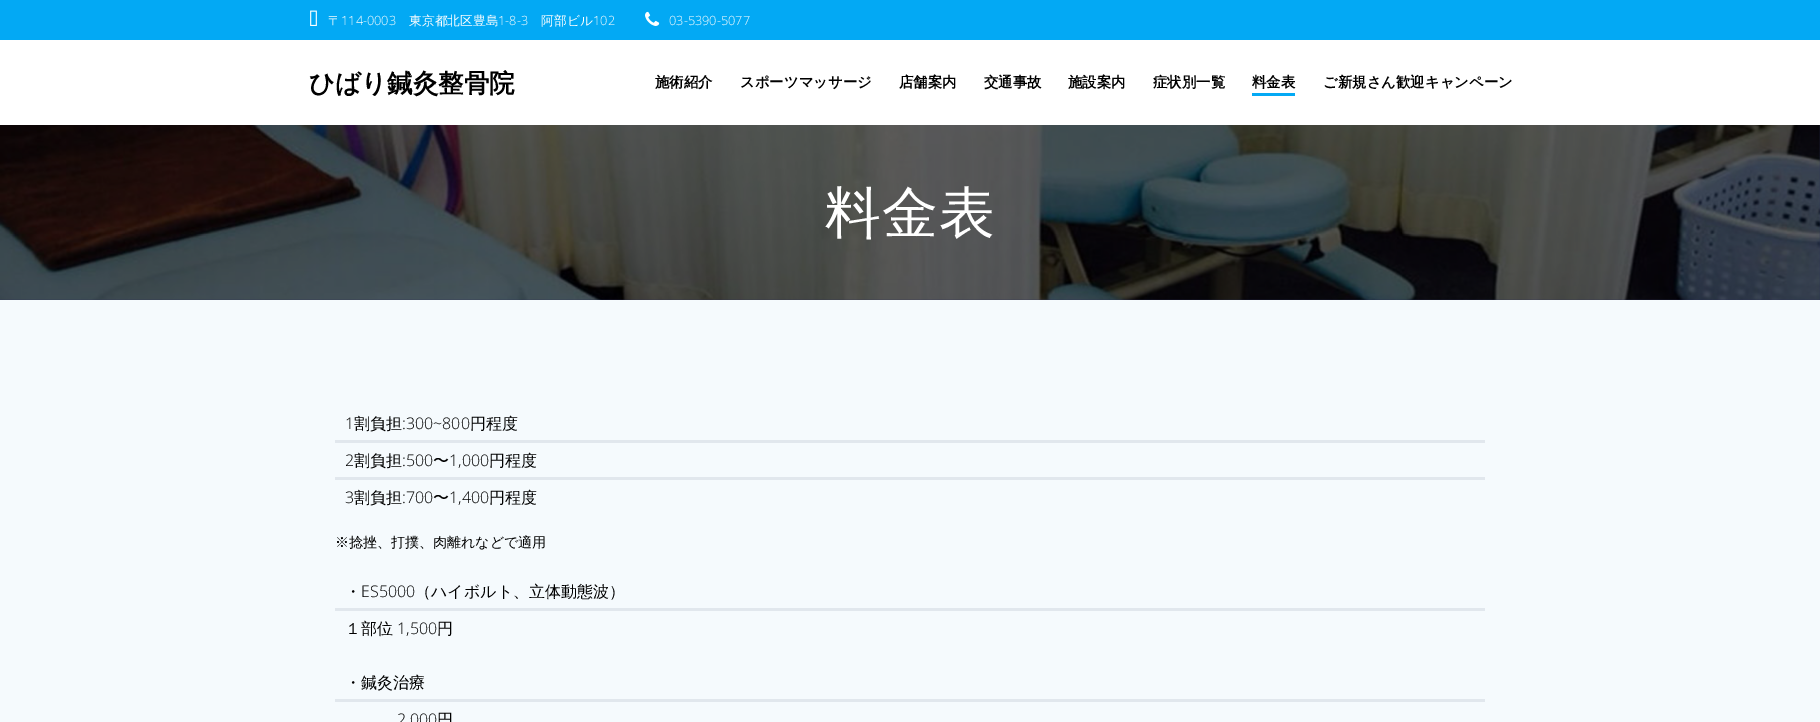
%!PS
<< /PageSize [1820 722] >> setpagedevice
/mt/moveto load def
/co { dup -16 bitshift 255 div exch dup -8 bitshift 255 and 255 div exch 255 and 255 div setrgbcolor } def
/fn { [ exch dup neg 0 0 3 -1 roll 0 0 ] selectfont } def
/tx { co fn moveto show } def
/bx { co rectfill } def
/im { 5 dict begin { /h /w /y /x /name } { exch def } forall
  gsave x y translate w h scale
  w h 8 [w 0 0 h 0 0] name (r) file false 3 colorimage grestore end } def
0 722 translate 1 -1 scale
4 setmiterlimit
0 0 1820 722 16#2A2E57 bx
0 0 1820 40 16#03A9F4 bx
(media/1.raw) 310 10 7 16 im
(media/2.raw) 645 11 15 15 im
0 40 1820 85 16#FFFFFF bx
1252 93 43 3 16#03A9F4 bx
(media/3.raw) 0 125 1820 175 im
0 300 1820 422 16#F5FAFD bx
335 440 1150 3 16#E1E7ED bx
335 477 1150 3 16#E1E7ED bx
335 608 1150 3 16#E1E7ED bx
335 699 1150 3 16#E1E7ED bx
(〒) 328 25 /WenQuanYiZenHei-Medium 12.75 16#FFFFFF tx
(114-0003) 341 25 /OpenSans-Light 12.75 16#FFFFFF tx
(東京都北区豊島) 409 25 /WenQuanYiZenHei-Medium 12.75 16#FFFFFF tx
(1-8-3) 498 25 /OpenSans-Light 12.75 16#FFFFFF tx
(阿部ビル) 541 25 /WenQuanYiZenHei-Medium 12.75 16#FFFFFF tx
(102) 593 25 /OpenSans-Light 12.75 16#FFFFFF tx
(03-5390-5077) 669 25 /OpenSans-Light 12.75 16#FFFFFF tx
(ひばり鍼灸整骨院) 309 92 /WenQuanYiZenHei-Bold 25.5 16#000000 tx
(施術紹介) 655 87 /WenQuanYiZenHei-Bold 14.4 16#000000 tx
(スポーツマッサージ) 740 87 /WenQuanYiZenHei-Bold 14.4 16#000000 tx
(店舗案内) 899 87 /WenQuanYiZenHei-Bold 14.4 16#000000 tx
(交通事故) 984 87 /WenQuanYiZenHei-Bold 14.4 16#000000 tx
(施設案内) 1068 87 /WenQuanYiZenHei-Bold 14.4 16#000000 tx
(症状別一覧) 1153 87 /WenQuanYiZenHei-Bold 14.4 16#000000 tx
(料金表) 1252 87 /WenQuanYiZenHei-Bold 14.4 16#000000 tx
(ご新規さん歓迎キャンペーン) 1323 87 /WenQuanYiZenHei-Bold 14.4 16#000000 tx
/WenQuanYiZenHei-Medium 56 fn
16#FFFFFF co
825 232 mt 1 0 (料金表) ashow
(1) 345 429 /OpenSans-Light 16 16#000000 tx
(割負担) 354 429 /WenQuanYiZenHei-Medium 16 16#000000 tx
(:300~800) 402 429 /OpenSans-Light 16 16#000000 tx
(円程度) 470 429 /WenQuanYiZenHei-Medium 16 16#000000 tx
(2) 345 466 /OpenSans-Light 16 16#000000 tx
(割負担) 354 466 /WenQuanYiZenHei-Medium 16 16#000000 tx
(:500) 402 466 /OpenSans-Light 16 16#000000 tx
(〜) 433 466 /WenQuanYiZenHei-Medium 16 16#000000 tx
(1,000) 449 466 /OpenSans-Light 16 16#000000 tx
(円程度) 489 466 /WenQuanYiZenHei-Medium 16 16#000000 tx
(3) 345 503 /OpenSans-Light 16 16#000000 tx
(割負担) 354 503 /WenQuanYiZenHei-Medium 16 16#000000 tx
(:700) 402 503 /OpenSans-Light 16 16#000000 tx
(〜) 433 503 /WenQuanYiZenHei-Medium 16 16#000000 tx
(1,400) 449 503 /OpenSans-Light 16 16#000000 tx
(円程度) 489 503 /WenQuanYiZenHei-Medium 16 16#000000 tx
(※捻挫、打撲、肉離れなどで適用) 335 547 /WenQuanYiZenHei-Medium 14 16#000000 tx
(・) 345 597 /WenQuanYiZenHei-Medium 16 16#000000 tx
(ES5000) 361 597 /OpenSans-Light 16 16#000000 tx
(（ハイボルト、立体動態波）) 415 597 /WenQuanYiZenHei-Medium 16 16#000000 tx
(１部位) 345 634 /WenQuanYiZenHei-Medium 16 16#000000 tx
(1,500) 397 634 /OpenSans-Light 16 16#000000 tx
(円) 437 634 /WenQuanYiZenHei-Medium 16 16#000000 tx
(・鍼灸治療) 345 688 /WenQuanYiZenHei-Medium 16 16#000000 tx
(2,000) 397 725 /OpenSans-Light 16 16#000000 tx
(円) 437 725 /WenQuanYiZenHei-Medium 16 16#000000 tx
showpage
